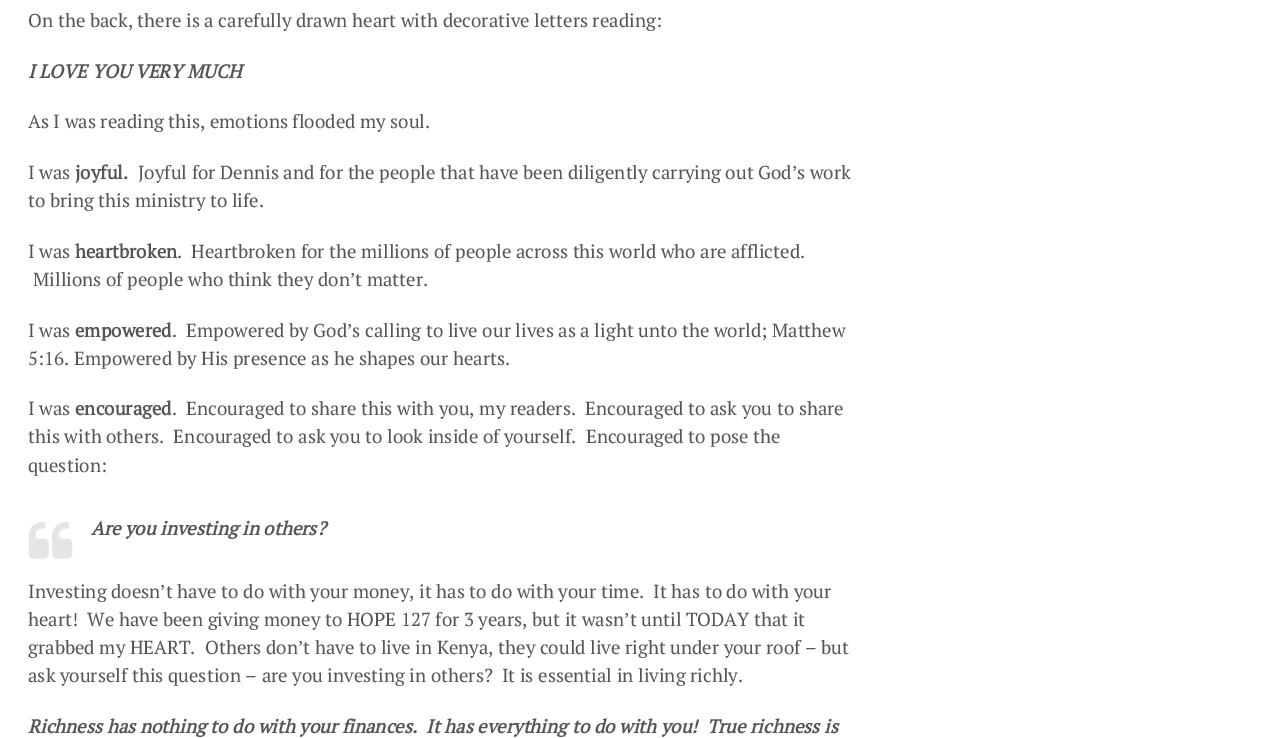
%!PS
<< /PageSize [1274 738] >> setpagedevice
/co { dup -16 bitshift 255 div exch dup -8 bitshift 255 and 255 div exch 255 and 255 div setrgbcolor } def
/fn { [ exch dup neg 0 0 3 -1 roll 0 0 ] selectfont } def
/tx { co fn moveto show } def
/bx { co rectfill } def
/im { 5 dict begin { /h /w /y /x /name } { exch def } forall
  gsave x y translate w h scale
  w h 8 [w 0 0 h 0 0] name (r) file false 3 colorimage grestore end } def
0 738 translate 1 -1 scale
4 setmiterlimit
0 0 1274 738 16#FFFFFF bx
(media/1.raw) 28 522 45 37 im
(On the back, there is a carefully drawn heart with decorative letters reading:) 28 27 /PTSerif-Regular 18.75 16#555555 tx
(I LOVE YOU VERY MUCH) 28 78 /PTSerif-BoldItalic 18.75 16#555555 tx
(As I was reading this, emotions flooded my soul.) 28 128 /PTSerif-Regular 18.75 16#555555 tx
(I was) 28 179 /PTSerif-Regular 18.75 16#555555 tx
(joyful.) 75 179 /PTSerif-Bold 18.75 16#555555 tx
(Joyful for Dennis and for the people that have been diligently carrying out God’s work) 138 179 /PTSerif-Regular 18.75 16#555555 tx
(to bring this ministry to life.) 28 207 /PTSerif-Regular 18.75 16#555555 tx
(I was) 28 258 /PTSerif-Regular 18.75 16#555555 tx
(heartbroken) 75 258 /PTSerif-Bold 18.75 16#555555 tx
(.  Heartbroken for the millions of people across this world who are afflicted.) 177 258 /PTSerif-Regular 18.75 16#555555 tx
(Millions of people who think they don’t matter.) 33 286 /PTSerif-Regular 18.75 16#555555 tx
(I was) 28 337 /PTSerif-Regular 18.75 16#555555 tx
(empowered) 75 337 /PTSerif-Bold 18.75 16#555555 tx
(.  Empowered by God’s calling to live our lives as a light unto the world; Matthew) 172 337 /PTSerif-Regular 18.75 16#555555 tx
(5:16. Empowered by His presence as he shapes our hearts.) 28 365 /PTSerif-Regular 18.75 16#555555 tx
(I was) 28 415 /PTSerif-Regular 18.75 16#555555 tx
(encouraged) 75 415 /PTSerif-Bold 18.75 16#555555 tx
(.  Encouraged to share this with you, my readers.  Encouraged to ask you to share) 172 415 /PTSerif-Regular 18.75 16#555555 tx
(this with others.  Encouraged to ask you to look inside of yourself.  Encouraged to pose the) 28 443 /PTSerif-Regular 18.75 16#555555 tx
(question:) 28 472 /PTSerif-Regular 18.75 16#555555 tx
(Are you investing in others?) 91 535 /PTSerif-BoldItalic 18.75 16#555555 tx
(Investing doesn’t have to do with your money, it has to do with your time.  It has to do with your) 28 598 /PTSerif-Regular 18.75 16#555555 tx
(heart!  We have been giving money to HOPE 127 for 3 years, but it wasn’t until TODAY that it) 28 626 /PTSerif-Regular 18.75 16#555555 tx
(grabbed my HEART.  Others don’t have to live in Kenya, they could live right under your roof – but) 28 654 /PTSerif-Regular 18.75 16#555555 tx
(ask yourself this question – are you investing in others?  It is essential in living richly.) 28 682 /PTSerif-Regular 18.75 16#555555 tx
(Richness has nothing to do with your finances.  It has everything to do with you!  True richness is) 28 733 /PTSerif-BoldItalic 18.75 16#555555 tx
showpage
